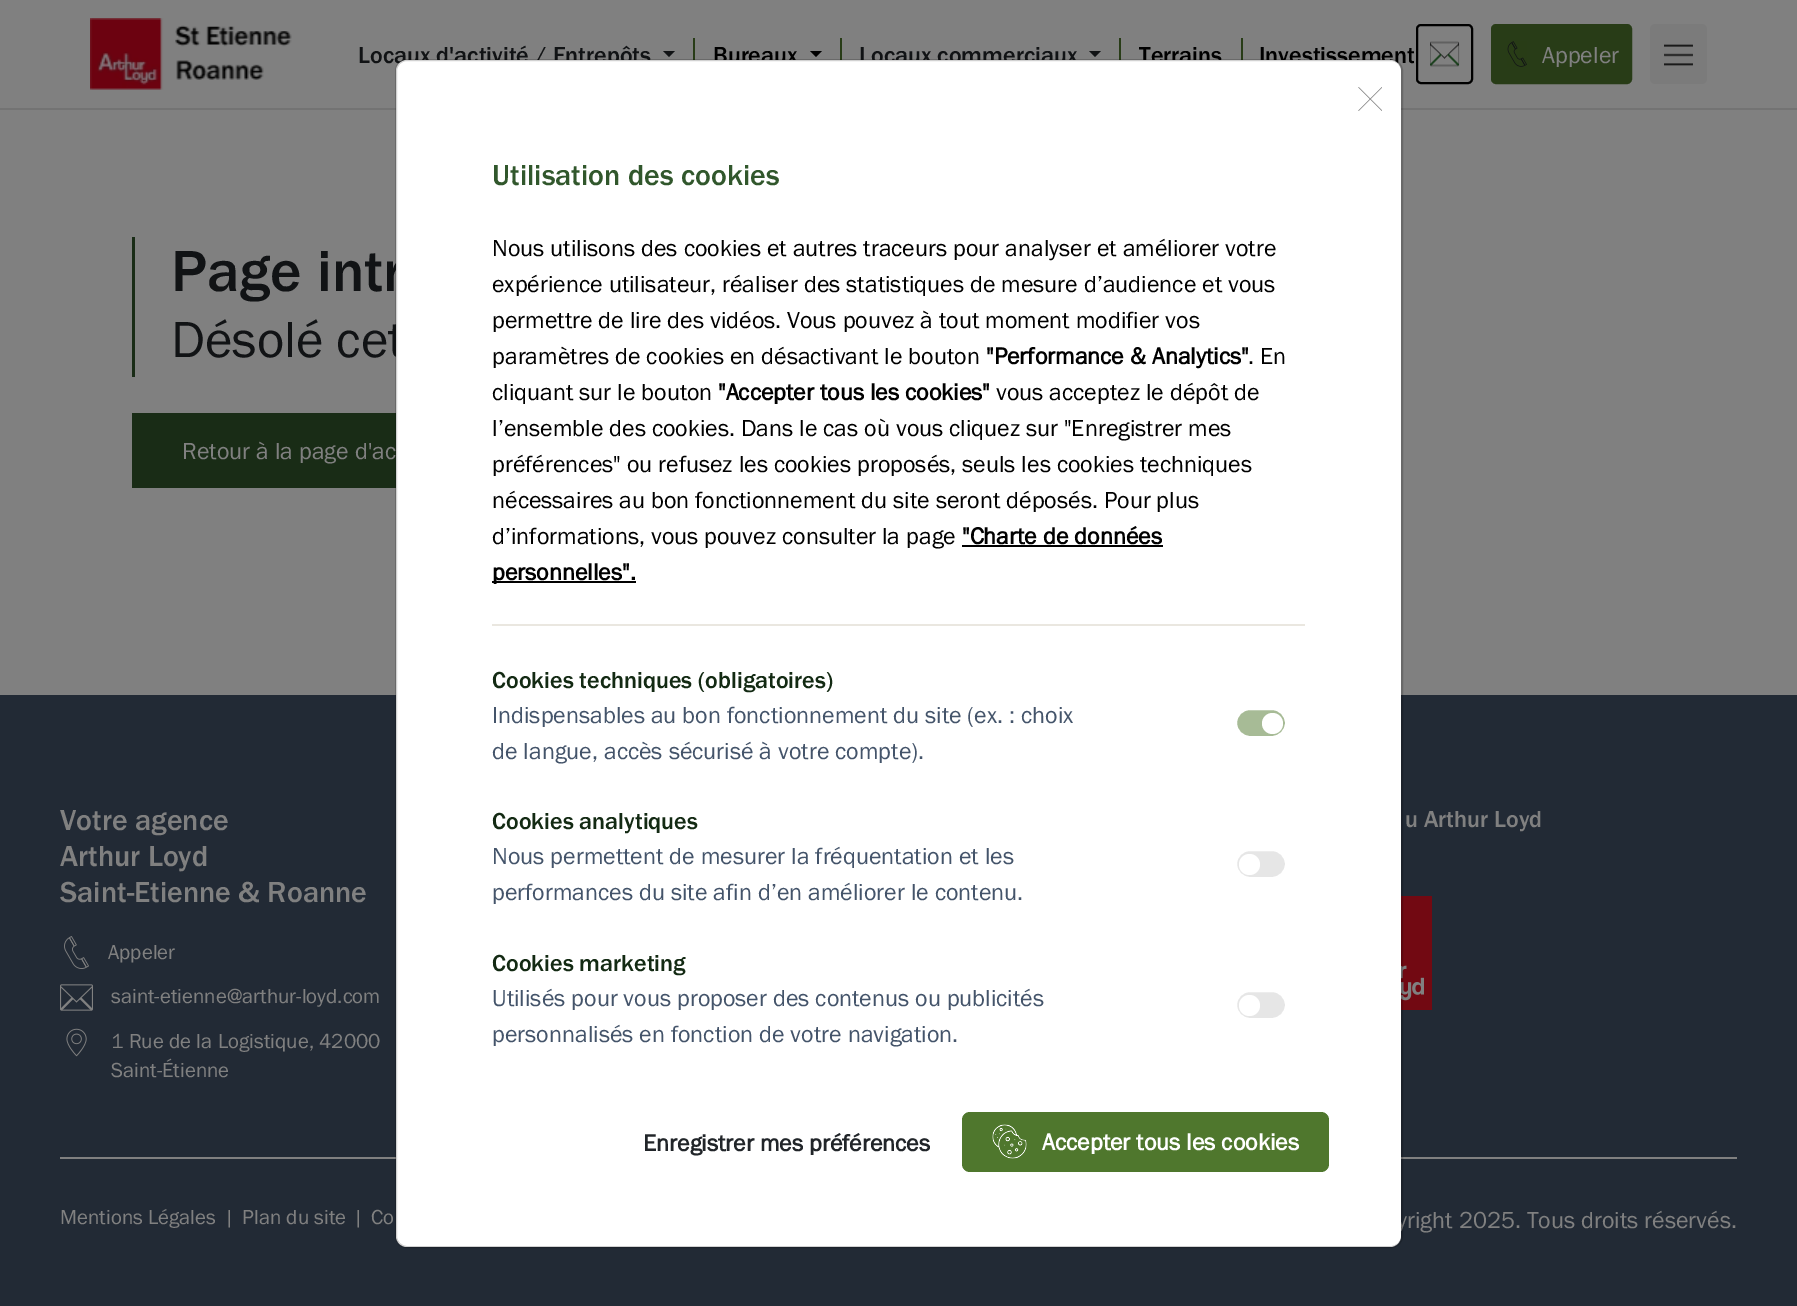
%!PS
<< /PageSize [1797 1306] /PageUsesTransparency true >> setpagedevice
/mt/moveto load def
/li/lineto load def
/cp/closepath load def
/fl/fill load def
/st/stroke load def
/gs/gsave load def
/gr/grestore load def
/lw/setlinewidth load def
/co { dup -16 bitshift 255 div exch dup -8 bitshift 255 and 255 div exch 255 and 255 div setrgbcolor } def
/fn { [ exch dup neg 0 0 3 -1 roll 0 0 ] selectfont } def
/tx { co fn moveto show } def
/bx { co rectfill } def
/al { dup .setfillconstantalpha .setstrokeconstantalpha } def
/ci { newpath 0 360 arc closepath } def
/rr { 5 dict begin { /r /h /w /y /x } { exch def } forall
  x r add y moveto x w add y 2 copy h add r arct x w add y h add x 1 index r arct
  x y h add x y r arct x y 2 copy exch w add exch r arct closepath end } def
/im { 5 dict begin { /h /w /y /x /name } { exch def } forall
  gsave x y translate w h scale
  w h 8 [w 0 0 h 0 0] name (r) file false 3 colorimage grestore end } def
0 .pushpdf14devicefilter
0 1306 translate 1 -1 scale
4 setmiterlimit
0 0 1797 1306 16#808080 bx
0 108 1797 2 16#737373 bx
(media/1.raw) 90 18 202 72 im
16#111315 co
663 51 mt 675 51 li 669 57 li cp fl
693 38 2 30 16#283C17 bx
16#000000 co
810 51 mt 822 51 li 816 57 li cp fl
840 38 2 30 16#283C17 bx
16#111315 co
1089 51 mt 1101 51 li 1095 57 li cp fl
1119 38 2 30 16#283C17 bx
1241 38 2 30 16#283C17 bx
16#000000 co
2 lw
1417 25 55 58 4 rr st
(media/2.raw) 1430 41 30 26 im
16#283C17 co
1492 25 139 58 4 rr gs fl gr
st
(media/3.raw) 1507 41 20 26 im
16#7B7B7B co
1650 24 57 60 5 rr fl
(media/4.raw) 1664 44 29 22 im
132 237 3 140 16#192C16 bx
132 413 264 75 16#192C16 bx
0 695 1797 611 16#222A35 bx
(media/7.raw) 64 936 25 33 im
(media/8.raw) 60 984 33 27 im
(media/9.raw) 66 1028 21 29 im
(media/10.raw) 1401 896 31 114 im
60 1157 1677 2 16#808080 bx
(Locaux d'activité / Entrepôts) 358 63 /FranklinGothic-Medium 24 16#111315 tx
(Bureaux) 713 63 /FranklinGothic-Medium 24 16#000000 tx
(Locaux commerciaux) 859 63 /FranklinGothic-Medium 24 16#111315 tx
(Terrains) 1139 63 /FranklinGothic-Medium 24 16#000000 tx
(Investissement) 1259 63 /FranklinGothic-Medium 24 16#000000 tx
(Appeler) 1542 63 /FranklinGothic-Regular 24 16#808080 tx
(Page intr) 171 291 /FranklinGothic-Medium 60 16#111315 tx
(Désolé cet) 171 357 /FranklinGothic-Regular 52.5 16#111315 tx
(Retour à la page d'ac) 182 459 /FranklinGothic-Regular 24 16#808080 tx
(Votre agence) 60 830 /FranklinGothic-Medium 30 16#808080 tx
(Arthur Loyd) 60 866 /FranklinGothic-Medium 30 16#808080 tx
(Saint-Etienne & Roanne) 60 902 /FranklinGothic-Medium 30 16#808080 tx
(Appeler) 108 959 /FranklinGothic-Regular 21 16#808080 tx
(saint-etienne@arthur-loyd.com) 111 1003 /FranklinGothic-Regular 21 16#808080 tx
(1 Rue de la Logistique, 42000) 111 1048 /FranklinGothic-Regular 21 16#808080 tx
(Saint-Étienne) 111 1077 /FranklinGothic-Regular 21 16#808080 tx
(u Arthur Loyd) 1405 827 /FranklinGothic-Medium 24 16#808080 tx
(Mentions Légales) 60 1224 /FranklinGothic-Regular 21 16#808080 tx
(|) 224 1224 /FranklinGothic-Regular 21 16#808080 tx
(Plan du site) 242 1224 /FranklinGothic-Regular 21 16#808080 tx
(|) 353 1224 /FranklinGothic-Regular 21 16#808080 tx
(Co) 371 1224 /FranklinGothic-Regular 21 16#808080 tx
(yright 2025. Tous droits réservés.) 1397 1228 /FranklinGothic-Regular 24 16#808080 tx
16#FFFFFF co
396 60 1005 1187 11 rr fl
0.18 al
16#000000 co
396 60 1006 1187 11 rr st
1 al
(media/5.raw) 1358 87 24 24 im
16#4F772D co
962 1112 367 60 8 rr fl
(media/6.raw) 992 1124 35 35 im
16#E6E6E6 co
1236 991 50 28 14 rr gs fl gr
16#FFFFFF co
st
1249.5 1005.5 10.5 ci fl
16#E6E6E6 co
1236 850 50 28 14 rr gs fl gr
16#FFFFFF co
st
1249.5 864.5 10.5 ci fl
16#A7BB96 co
1236 709 50 28 14 rr gs fl gr
16#FFFFFF co
st
1272.5 723.5 10.5 ci fl
492 624 813 2 16#EAE7E0 bx
(personnalisés en fonction de votre navigation.) 492 1042 /FranklinGothic-Regular 24 16#44546A tx
(Utilisés pour vous proposer des contenus ou publicités) 492 1006 /FranklinGothic-Regular 24 16#44546A tx
(Cookies marketing) 492 971 /FranklinGothic-Medium 24 16#132A13 tx
(performances du site afin d’en améliorer le contenu.) 492 900 /FranklinGothic-Regular 24 16#44546A tx
(Nous permettent de mesurer la fréquentation et les) 492 864 /FranklinGothic-Regular 24 16#44546A tx
(Cookies analytiques) 492 829 /FranklinGothic-Medium 24 16#132A13 tx
(de langue, accès sécurisé à votre compte\).) 492 759 /FranklinGothic-Regular 24 16#44546A tx
(Indispensables au bon fonctionnement du site \(ex. : choix) 492 723 /FranklinGothic-Regular 24 16#44546A tx
(Cookies techniques \(obligatoires\)) 492 688 /FranklinGothic-Medium 24 16#132A13 tx
492 581 144 2 16#000000 bx
(personnelles".) 492 580 /FranklinGothic-Bold 24 16#000000 tx
("Charte de données) 962 544 /FranklinGothic-Bold 24 16#000000 tx
962 545 201 2 16#000000 bx
(d’informations, vous pouvez consulter la page) 492 544 /FranklinGothic-Regular 24 16#000000 tx
(nécessaires au bon fonctionnement du site seront déposés. Pour plus) 492 508 /FranklinGothic-Regular 24 16#000000 tx
(préférences" ou refusez les cookies proposés, seuls les cookies techniques) 492 472 /FranklinGothic-Regular 24 16#000000 tx
(l’ensemble des cookies. Dans le cas où vous cliquez sur "Enregistrer mes) 492 436 /FranklinGothic-Regular 24 16#000000 tx
(vous acceptez le dépôt de) 996 400 /FranklinGothic-Regular 24 16#000000 tx
("Accepter tous les cookies") 718 400 /FranklinGothic-Bold 24 16#000000 tx
(cliquant sur le bouton) 492 400 /FranklinGothic-Regular 24 16#000000 tx
(. En) 1248 364 /FranklinGothic-Regular 24 16#000000 tx
("Performance & Analytics") 986 364 /FranklinGothic-Bold 24 16#000000 tx
(paramètres de cookies en désactivant le bouton) 492 364 /FranklinGothic-Regular 24 16#000000 tx
(permettre de lire des vidéos. Vous pouvez à tout moment modifier vos) 492 328 /FranklinGothic-Regular 24 16#000000 tx
(expérience utilisateur, réaliser des statistiques de mesure d’audience et vous) 492 292 /FranklinGothic-Regular 24 16#000000 tx
(Nous utilisons des cookies et autres traceurs pour analyser et améliorer votre) 492 256 /FranklinGothic-Regular 24 16#000000 tx
(Utilisation des cookies) 492 185 /FranklinGothic-Medium 30 16#31572C tx
(Accepter tous les cookies) 1042 1150 /FranklinGothic-Bold 24 16#FFFFFF tx
(Enregistrer mes préférences) 643 1151 /FranklinGothic-Bold 24 16#212529 tx
.poppdf14devicefilter showpage
